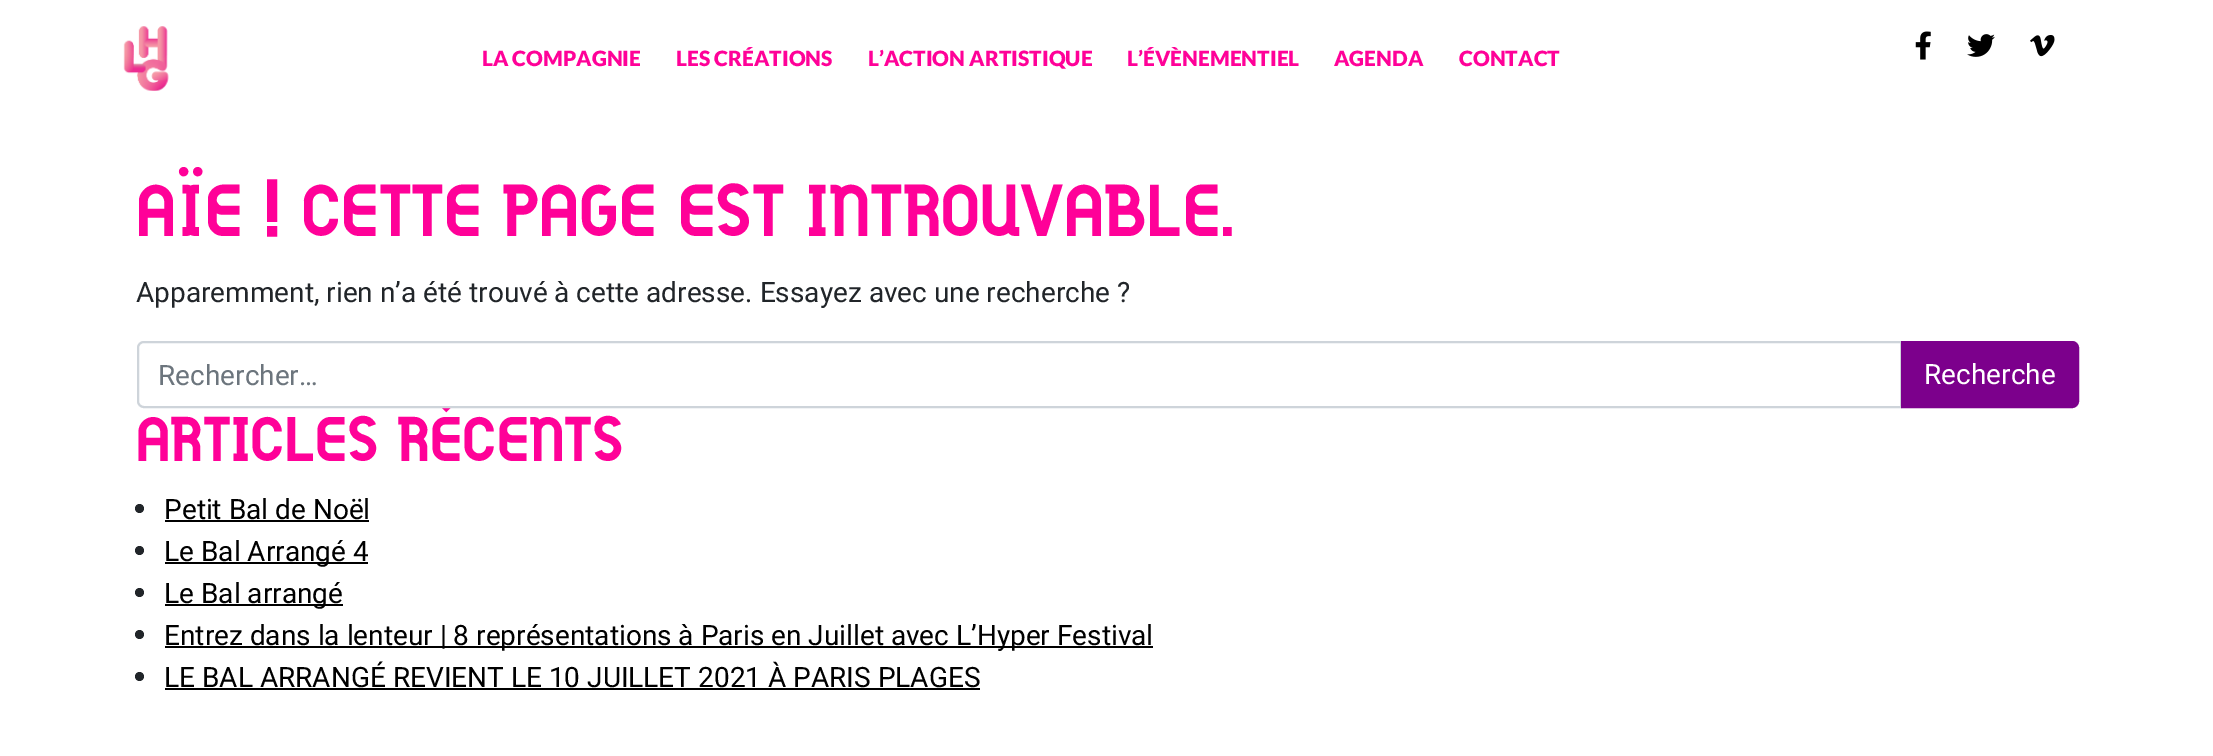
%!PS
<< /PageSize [2213 756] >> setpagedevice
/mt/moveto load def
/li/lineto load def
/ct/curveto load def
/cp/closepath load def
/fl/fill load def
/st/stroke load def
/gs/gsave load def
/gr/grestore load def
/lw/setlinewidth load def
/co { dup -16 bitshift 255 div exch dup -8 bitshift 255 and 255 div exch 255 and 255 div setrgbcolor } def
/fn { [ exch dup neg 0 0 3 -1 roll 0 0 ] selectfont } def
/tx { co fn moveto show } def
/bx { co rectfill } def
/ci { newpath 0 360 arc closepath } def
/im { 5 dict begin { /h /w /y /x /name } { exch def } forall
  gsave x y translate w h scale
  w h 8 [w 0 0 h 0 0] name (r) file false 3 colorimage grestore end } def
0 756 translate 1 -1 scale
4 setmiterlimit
0 0 2213 756 16#FFFFFF bx
(media/1.raw) 123 26 46 65 im
(media/2.raw) 1915 31 16 29 im
(media/3.raw) 1967 34 28 23 im
(media/4.raw) 2030 35 25 22 im
16#212529 co
139.5 508.5 4.5 ci fl
165 520 204 2 16#000000 bx
16#212529 co
139.5 550.5 4.5 ci fl
165 562 203 2 16#000000 bx
16#212529 co
139.5 592.5 4.5 ci fl
165 604 178 2 16#000000 bx
16#212529 co
139.5 634.5 4.5 ci fl
165 646 988 2 16#000000 bx
16#212529 co
139.5 676.5 4.5 ci fl
165 688 815 2 16#000000 bx
(LA COMPAGNIE) 482 66 /Lato-Black 21 16#FF0198 tx
(LES CRÉATIONS) 676 66 /Lato-Black 21 16#FF0198 tx
(L’ACTION ARTISTIQUE) 868 66 /Lato-Black 21 16#FF0198 tx
(L’ÉVÈNEMENTIEL) 1127 66 /Lato-Black 21 16#FF0198 tx
(AGENDA) 1334 66 /Lato-Black 21 16#FF0198 tx
(CONTACT) 1459 66 /Lato-Black 21 16#FF0198 tx
(AÏE ! CETTE PAGE EST INTROUVABLE.) 136 236 /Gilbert-Bold 73.5 16#FF0198 tx
(Apparemment, rien n’a été trouvé à cette adresse. Essayez avec une recherche ?) 136 302 /Roboto-Regular 28 16#212529 tx
(ARTICLES RÉCENTS) 136 461 /Gilbert-Bold 63 16#FF0198 tx
16#FFFFFF co
144 342 mt 1901 342 li 1901 407 li 144 407 li 140.5 407 138 404.5 138 401 ct 138 348 li 138 344.5 140.5 342 144 342 ct cp gs fl gr
16#CED4DA co
2 lw
st
16#7C008C co
1902 342 mt 2072 342 li 2075.5 342 2078 344.5 2078 348 ct 2078 401 li 2078 404.5 2075.5 407 2072 407 ct 1902 407 li cp gs fl gr
st
(Recherche) 1924 384 /Roboto-Regular 28 16#FFFFFF tx
(Rechercher…) 158 385 /Roboto-Regular 28 16#6C757D tx
(Petit Bal de Noël) 164 519 /Roboto-Regular 28 16#000000 tx
(Le Bal Arrangé 4) 164 561 /Roboto-Regular 28 16#000000 tx
(Le Bal arrangé) 164 603 /Roboto-Regular 28 16#000000 tx
(Entrez dans la lenteur | 8 représentations à Paris en Juillet avec L’Hyper Festival) 164 645 /Roboto-Regular 28 16#000000 tx
(LE BAL ARRANGÉ REVIENT LE 10 JUILLET 2021 À PARIS PLAGES) 164 687 /Roboto-Regular 28 16#000000 tx
showpage
